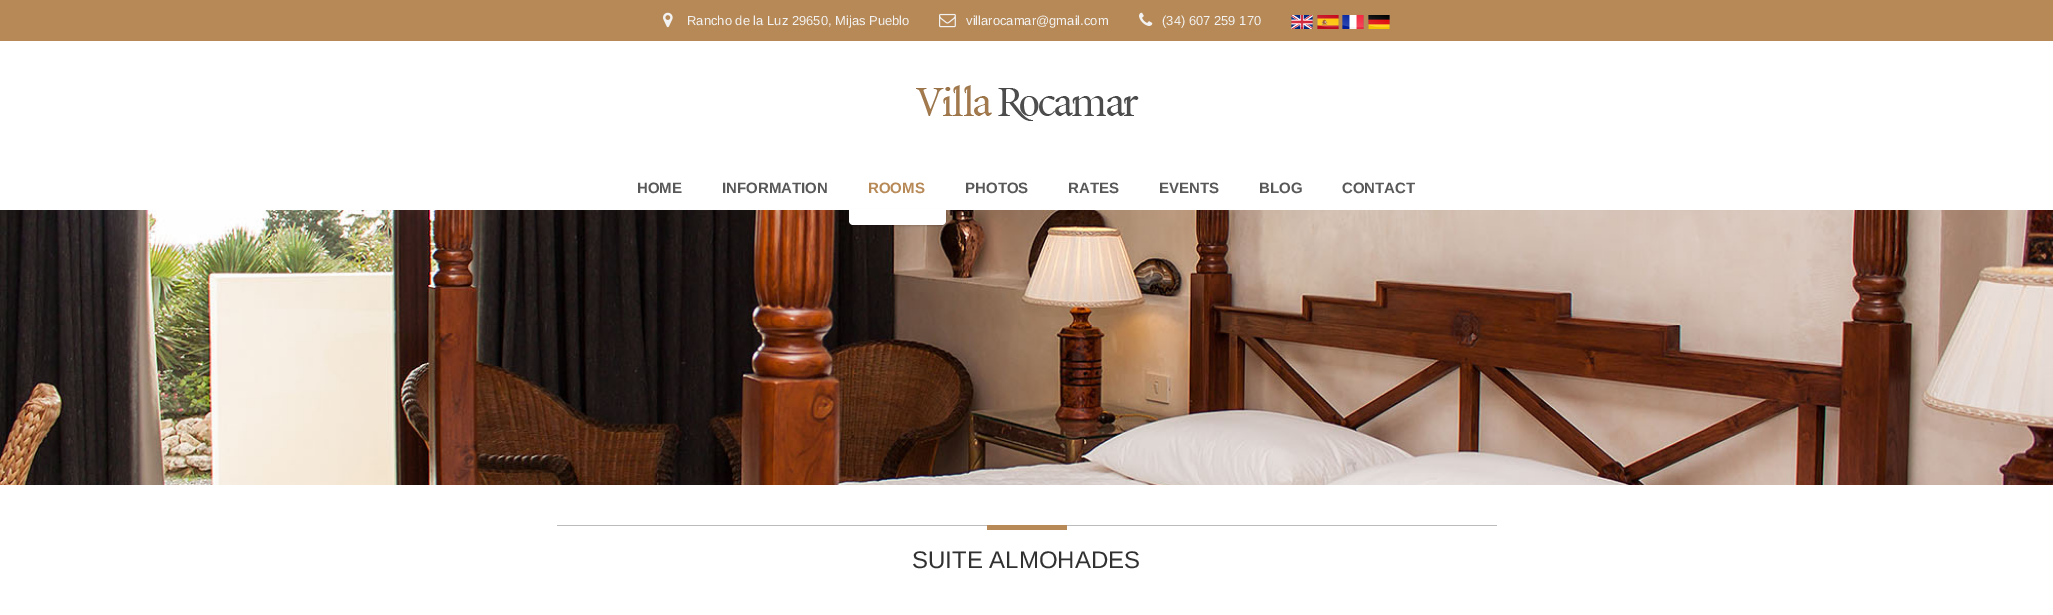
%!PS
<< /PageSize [2053 615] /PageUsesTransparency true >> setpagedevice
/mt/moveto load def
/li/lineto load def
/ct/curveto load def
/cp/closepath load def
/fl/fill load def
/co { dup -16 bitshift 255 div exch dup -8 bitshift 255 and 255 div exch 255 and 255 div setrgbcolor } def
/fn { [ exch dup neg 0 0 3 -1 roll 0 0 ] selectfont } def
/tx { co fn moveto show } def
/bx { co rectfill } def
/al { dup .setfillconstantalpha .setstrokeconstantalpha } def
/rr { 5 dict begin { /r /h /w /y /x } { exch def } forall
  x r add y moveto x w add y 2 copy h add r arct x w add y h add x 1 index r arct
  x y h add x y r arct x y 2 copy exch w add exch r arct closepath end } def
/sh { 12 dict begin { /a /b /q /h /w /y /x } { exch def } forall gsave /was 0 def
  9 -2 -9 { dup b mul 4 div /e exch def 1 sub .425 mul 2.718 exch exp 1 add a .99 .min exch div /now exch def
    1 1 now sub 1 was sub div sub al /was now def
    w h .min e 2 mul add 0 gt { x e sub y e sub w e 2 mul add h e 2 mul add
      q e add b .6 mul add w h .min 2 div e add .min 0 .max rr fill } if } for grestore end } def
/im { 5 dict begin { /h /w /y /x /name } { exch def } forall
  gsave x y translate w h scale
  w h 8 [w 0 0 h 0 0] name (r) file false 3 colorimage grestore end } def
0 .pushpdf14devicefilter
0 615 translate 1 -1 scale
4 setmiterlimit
0 0 2053 615 16#B78956 bx
(media/1.raw) 663 12 10 16 im
(media/2.raw) 939 13 17 15 im
(media/3.raw) 1139 12 14 14 im
(media/4.raw) 1291 15 22 14 im
(media/5.raw) 1317 15 22 14 im
(media/6.raw) 1342 15 22 14 im
(media/7.raw) 1368 15 22 14 im
0 41 2053 169 16#FFFFFF bx
(media/8.raw) 916 85 223 36 im
(media/9.raw) 0 210 2053 275 im
16#000000 co
849 211 97 15 4 1 .2 sh
852 209 91 1 16#FFFFFF bx
849 210 mt 946 210 li 946 221 li 946 223 944 225 942 225 ct 853 225 li 851 225 849 223 849 221 ct cp fl
0 485 2053 130 16#FFFFFF bx
557 525 940 1 16#BBBBBB bx
987 525 80 5 16#B78956 bx
(Rancho de la Luz 29650, Mijas Pueblo) 687 25 /LiberationSans-Regular 13 16#F2F2F2 tx
(villarocamar@gmail.com) 966 25 /LiberationSans-Regular 13 16#F2F2F2 tx
(\(34\) 607 259 170) 1162 25 /LiberationSans-Regular 13 16#F2F2F2 tx
(HOME) 637 193 /LiberationSans-Bold 15 16#585858 tx
(INFORMATION) 722 193 /LiberationSans-Bold 15 16#585858 tx
(ROOMS) 868 193 /LiberationSans-Bold 15 16#B78956 tx
(PHOTOS) 965 193 /LiberationSans-Bold 15 16#585858 tx
(RATES) 1068 193 /LiberationSans-Bold 15 16#585858 tx
(EVENTS) 1159 193 /LiberationSans-Bold 15 16#585858 tx
(BLOG) 1259 193 /LiberationSans-Bold 15 16#585858 tx
(CONTACT) 1342 193 /LiberationSans-Bold 15 16#585858 tx
(SUITE ALMOHADES) 912 568 /LiberationSans-Regular 24 16#313131 tx
.poppdf14devicefilter showpage
